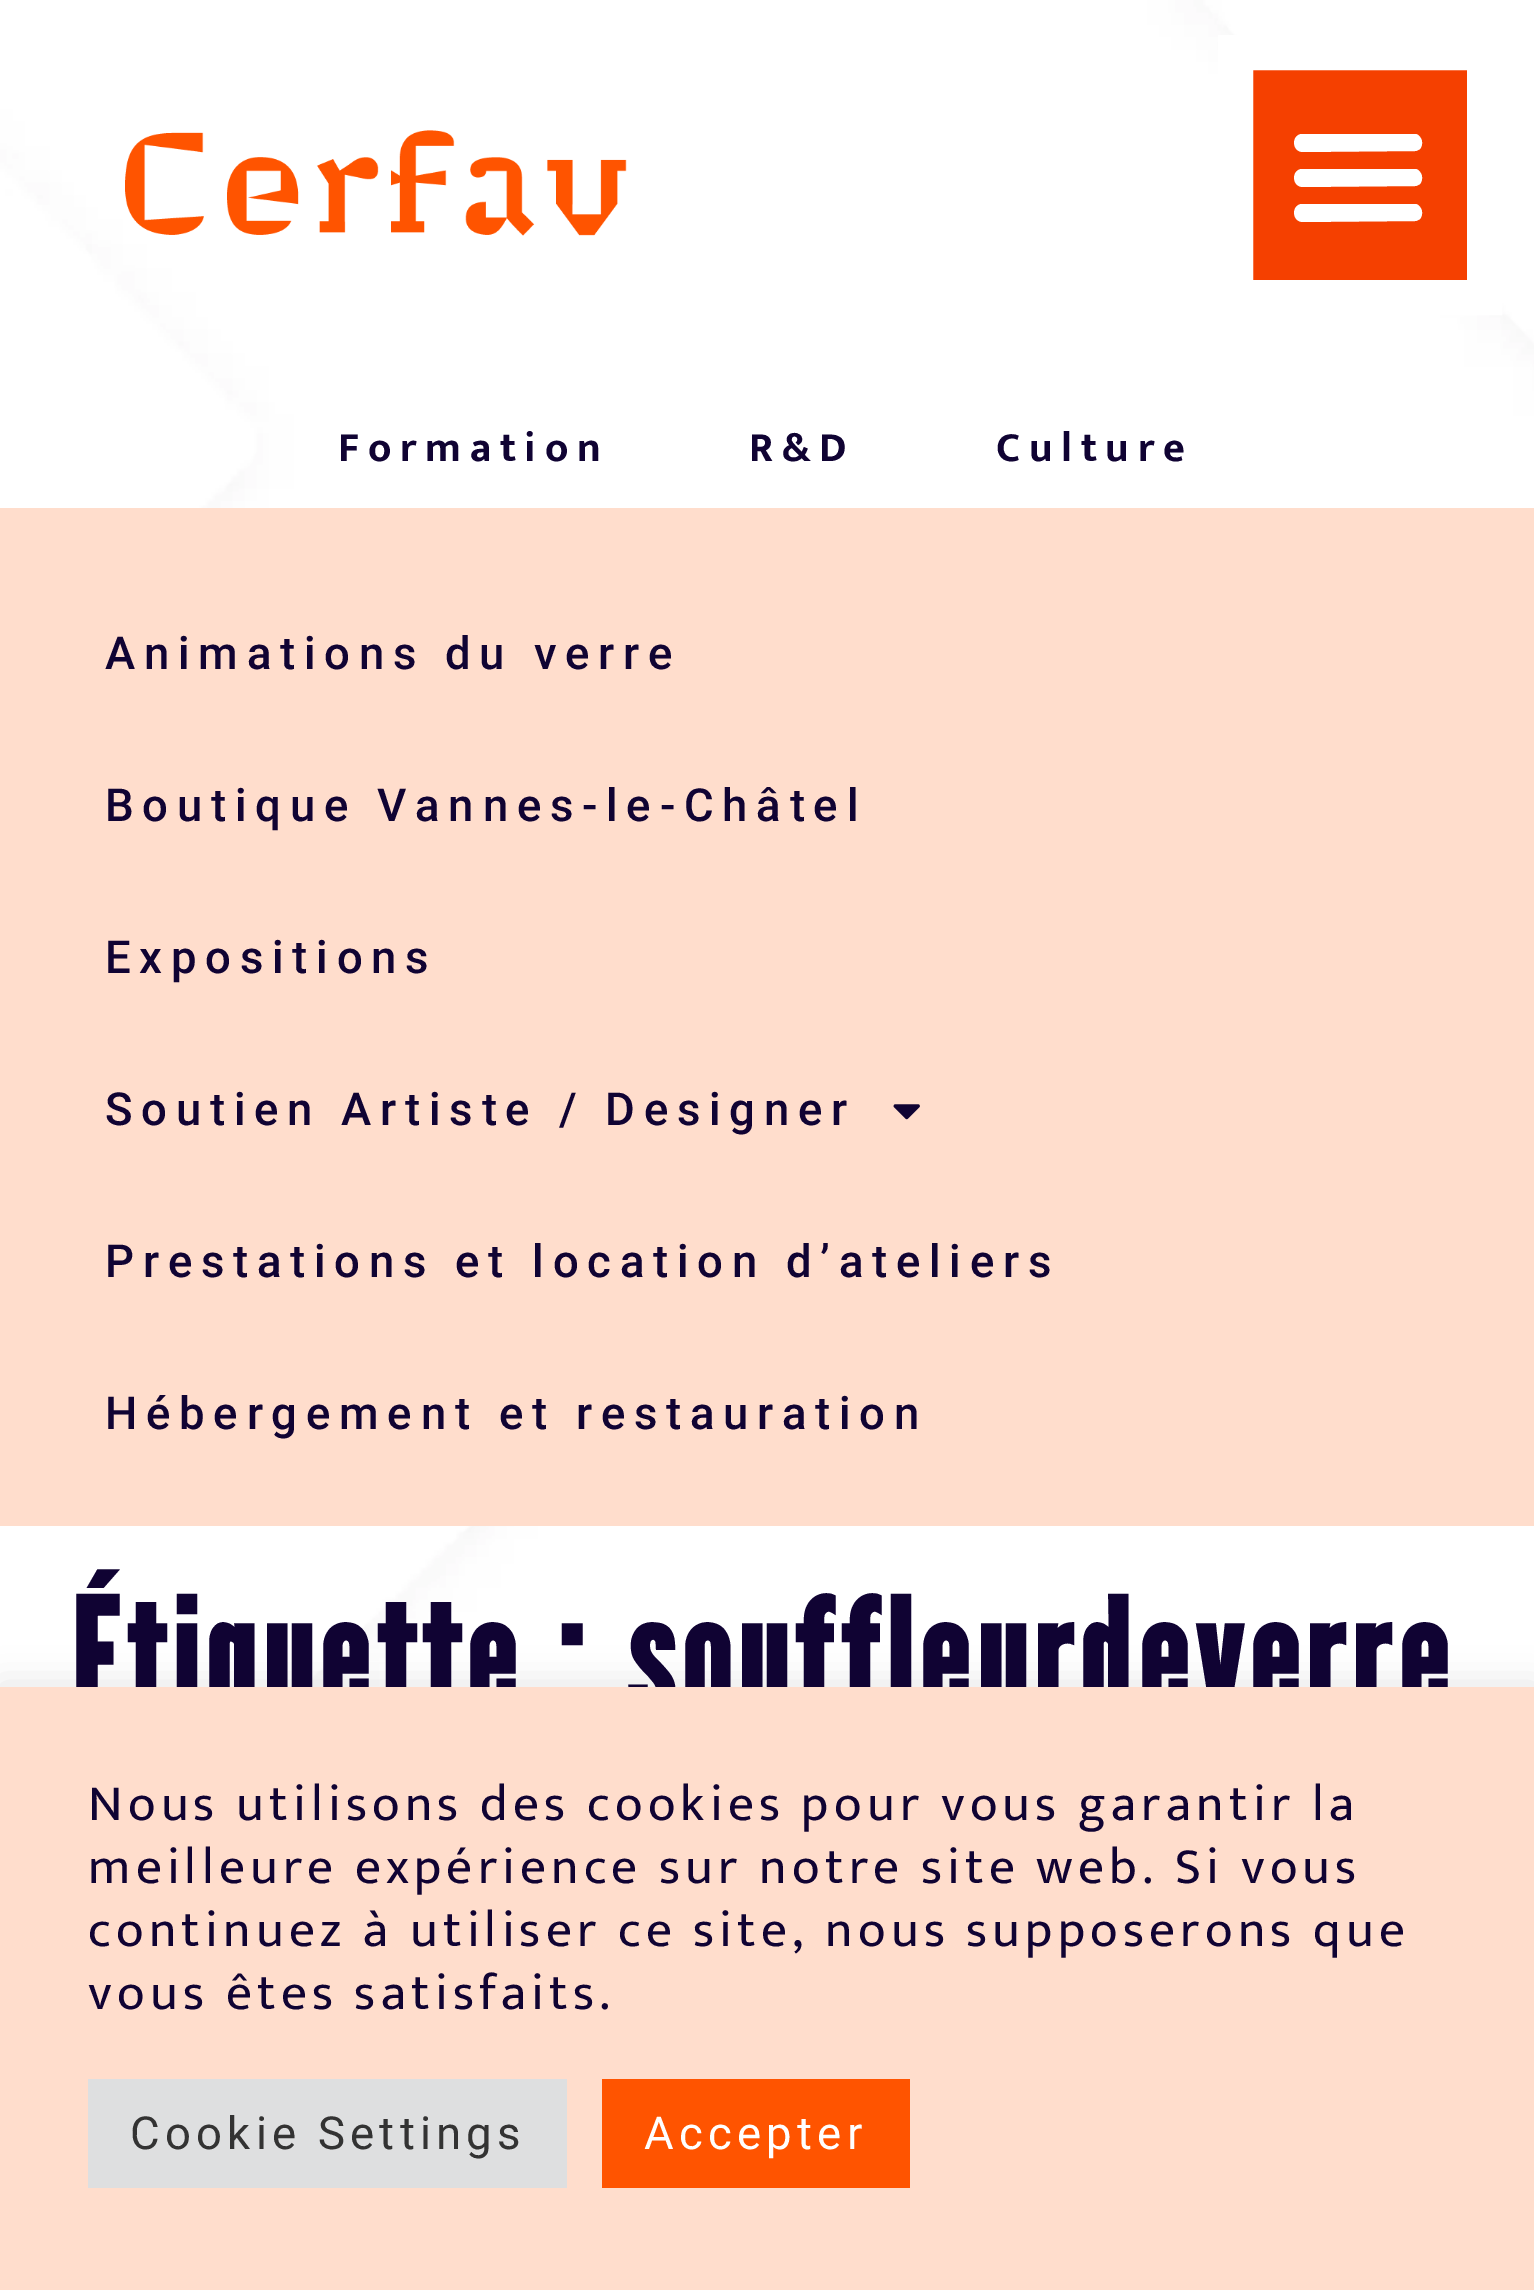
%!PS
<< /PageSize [1534 2290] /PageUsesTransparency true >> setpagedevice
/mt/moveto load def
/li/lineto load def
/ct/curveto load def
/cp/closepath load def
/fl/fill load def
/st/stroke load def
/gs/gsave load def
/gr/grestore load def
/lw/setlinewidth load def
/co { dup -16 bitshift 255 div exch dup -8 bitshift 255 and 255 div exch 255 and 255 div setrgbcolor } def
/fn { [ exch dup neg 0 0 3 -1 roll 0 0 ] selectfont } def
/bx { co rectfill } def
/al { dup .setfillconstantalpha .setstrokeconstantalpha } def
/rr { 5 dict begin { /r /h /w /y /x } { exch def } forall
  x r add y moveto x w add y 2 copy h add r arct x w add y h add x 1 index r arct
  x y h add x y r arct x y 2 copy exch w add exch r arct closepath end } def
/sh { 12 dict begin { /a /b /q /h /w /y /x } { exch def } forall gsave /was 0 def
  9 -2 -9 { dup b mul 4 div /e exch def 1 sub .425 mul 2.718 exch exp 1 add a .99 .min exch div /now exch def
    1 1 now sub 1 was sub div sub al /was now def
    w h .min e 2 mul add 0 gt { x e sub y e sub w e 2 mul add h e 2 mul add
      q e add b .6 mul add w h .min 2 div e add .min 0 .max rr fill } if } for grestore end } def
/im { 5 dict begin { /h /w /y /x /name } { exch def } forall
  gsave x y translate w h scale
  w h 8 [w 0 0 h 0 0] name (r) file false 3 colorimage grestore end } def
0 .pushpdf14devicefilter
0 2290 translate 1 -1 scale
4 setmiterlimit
0 0 1534 2290 16#FFFFFF bx
(media/1.raw) 0 0 1534 1687 im
(media/2.raw) 125 130 502 106 im
16#F54000 co
1235.5 52.5 mt 1484.5 52.5 li 1484.5 297.5 li 1235.5 297.5 li cp gs fl gr
16#FFFFFF co
35 lw
st
1303 152 mt 1415 151 li 1417 151 1418 150 1420 149 ct 1424 144 1422 136 1416 134 ct 1301 134 li 1291 136 1292 152 1303 152 ct cp 1303 187 mt 1415 186 li 1417 186 1418 185 1420 184 ct 1424 179 1422 171 1416 169 ct 1301 169 li 1291 171 1292 187 1303 187 ct cp 1303 222 mt 1415 221 li 1417 221 1418 220 1420 219 ct 1424 214 1422 206 1416 204 ct 1301 204 li 1291 206 1292 222 1303 222 ct cp fl
0 508 1534 1018 16#FFDDCC bx
(media/3.raw) 893 1104 27 16 im
16#ACABAB co
0 1684 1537 605 0 17.5 .3 sh
/Mukta-Bold 42 fn
16#100333 co
338 461 mt 8.75 0 (Formation) ashow
749 461 mt 8.75 0 (R&D) ashow
996 461 mt 8.75 0 (Culture) ashow
/Roboto-Medium 45.5 fn
105 669 mt 8.75 0 (Animations du verre) ashow
105 821 mt 8.75 0 (Boutique Vannes-le-Châtel) ashow
105 973 mt 8.75 0 (Expositions) ashow
105 1125 mt 8.75 0 (Soutien Artiste / Designer) ashow
105 1277 mt 8.75 0 (Prestations et location d’ateliers) ashow
105 1429 mt 8.75 0 (Hébergement et restauration) ashow
/LeagueGothic-Bold 157.5 fn
70 1714 mt 8.75 0 (Étiquette : souffleurdeverre) ashow
0 1687 1534 603 16#FFDDCC bx
/Mukta-Regular 51.3 fn
16#100333 co
88 1820 mt 5.25 0 (Nous utilisons des cookies pour vous garantir la) ashow
88 1883 mt 5.25 0 (meilleure expérience sur notre site web. Si vous) ashow
88 1946 mt 5.25 0 (continuez à utiliser ce site, nous supposerons que) ashow
88 2009 mt 5.25 0 (vous êtes satisfaits.) ashow
88 2079 479 109 16#DEDFE0 bx
/Roboto-Regular 45.5 fn
16#333333 co
130 2149 mt 5.25 0 (Cookie Settings) ashow
602 2079 308 109 16#FF5400 bx
16#FFFFFF co
644 2149 mt 5.25 0 (Accepter) ashow
.poppdf14devicefilter showpage
